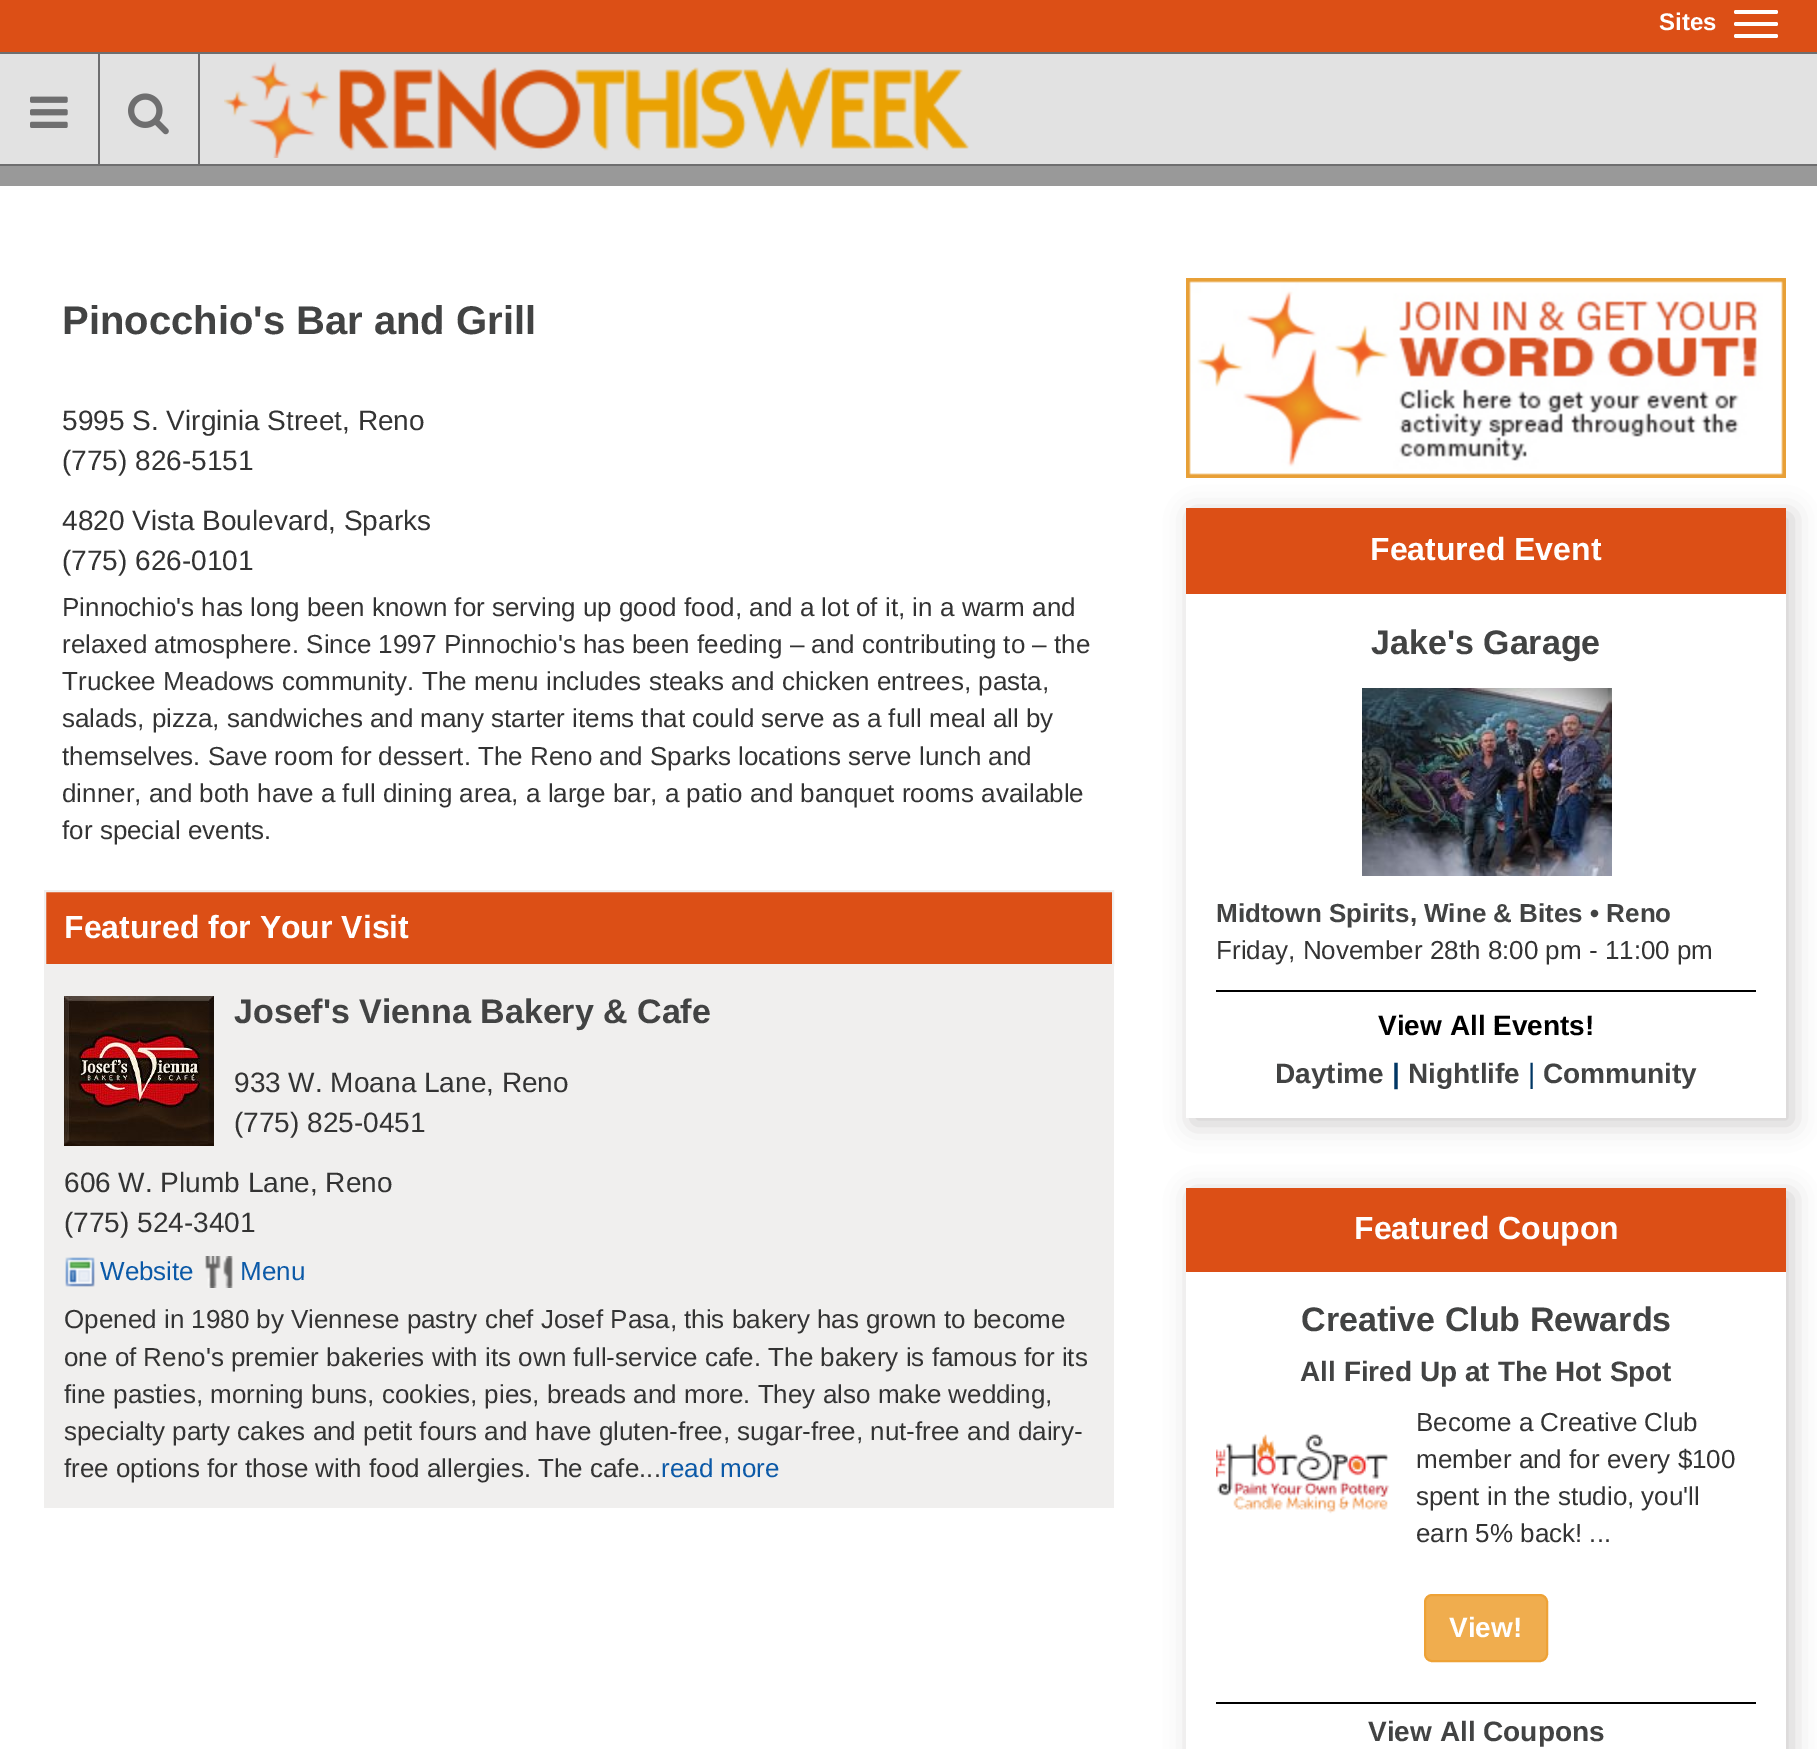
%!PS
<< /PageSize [1817 1749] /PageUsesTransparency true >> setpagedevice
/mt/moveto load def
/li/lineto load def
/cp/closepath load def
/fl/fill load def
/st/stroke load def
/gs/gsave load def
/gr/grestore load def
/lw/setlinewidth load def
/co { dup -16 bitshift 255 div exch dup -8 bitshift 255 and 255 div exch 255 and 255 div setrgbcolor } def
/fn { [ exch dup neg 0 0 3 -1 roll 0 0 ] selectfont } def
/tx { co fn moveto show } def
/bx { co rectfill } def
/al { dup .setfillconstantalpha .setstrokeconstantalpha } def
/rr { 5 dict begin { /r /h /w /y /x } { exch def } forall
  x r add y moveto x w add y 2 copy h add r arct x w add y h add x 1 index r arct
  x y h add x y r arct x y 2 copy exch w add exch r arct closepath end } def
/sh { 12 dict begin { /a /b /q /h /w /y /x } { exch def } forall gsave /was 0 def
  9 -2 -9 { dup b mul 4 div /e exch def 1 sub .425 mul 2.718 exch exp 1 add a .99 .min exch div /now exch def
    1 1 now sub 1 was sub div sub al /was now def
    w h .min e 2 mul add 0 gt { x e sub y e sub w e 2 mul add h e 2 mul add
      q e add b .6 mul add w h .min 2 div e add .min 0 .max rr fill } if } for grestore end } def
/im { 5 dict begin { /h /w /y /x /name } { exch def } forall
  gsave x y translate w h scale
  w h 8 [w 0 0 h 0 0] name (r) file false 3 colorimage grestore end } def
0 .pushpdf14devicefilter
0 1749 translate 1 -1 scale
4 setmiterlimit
0 0 1817 1749 16#999999 bx
0 0 1817 52 16#DC4F16 bx
16#FFFFFF co
1734 10 44 4 2 rr fl
1734 22 44 4 2 rr fl
1734 34 44 4 2 rr fl
0 54 1817 110 16#E2E2E2 bx
0 52 1817 2 16#6E6E6F bx
0 164 1817 2 16#6E6E6F bx
98 54 2 110 16#6E6E6F bx
(media/1.raw) 30 96 38 32 im
198 54 2 110 16#6E6E6F bx
(media/2.raw) 128 93 41 42 im
(media/3.raw) 224 61 745 97 im
0 186 1817 1563 16#FFFFFF bx
44 966 1070 542 16#F0EFEE bx
16#DC4F16 co
45 891 mt 1113 891 li 1113 965 li 45 965 li cp gs fl gr
16#F0EFEE co
2 lw
st
(media/4.raw) 64 996 150 150 im
(media/5.raw) 65 1257 30 30 im
(media/6.raw) 205 1256 28 32 im
gs
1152 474 mt 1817 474 li 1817 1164 li 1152 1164 li cp 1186 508 mt 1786 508 li 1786 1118 li 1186 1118 li cp eoclip newpath
16#100000 co
1192 514 600 610 0 13 .2 sh
gr
(media/7.raw) 1186 278 600 200 im
1186 508 600 86 16#DC4F16 bx
(media/8.raw) 1362 688 250 188 im
1216 990 540 2 16#000000 bx
gs
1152 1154 mt 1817 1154 li 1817 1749 li 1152 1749 li cp 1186 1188 mt 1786 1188 li 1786 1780 li 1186 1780 li cp eoclip newpath
16#100000 co
1192 1194 600 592 0 13 .2 sh
gr
1186 1188 600 84 16#DC4F16 bx
(media/9.raw) 1216 1434 174 80 im
16#F0AD4E co
1425 1595 122 66 7 rr gs fl gr
16#EEA236 co
st
1216 1702 540 2 16#000000 bx
(Sites) 1659 30 /LiberationSans-Bold 24 16#FFFFFF tx
(Pinocchio's Bar and Grill) 62 334 /LiberationSans-Bold 40 16#424343 tx
(5995 S. Virginia Street, Reno) 62 430 /LiberationSans-Regular 28 16#333333 tx
(\(775\) 826-5151) 62 470 /LiberationSans-Regular 28 16#333333 tx
(4820 Vista Boulevard, Sparks) 62 530 /LiberationSans-Regular 28 16#333333 tx
(\(775\) 626-0101) 62 570 /LiberationSans-Regular 28 16#333333 tx
(Pinnochio's has long been known for serving up good food, and a lot of it, in a warm and) 62 616 /LiberationSans-Regular 26 16#333333 tx
(relaxed atmosphere. Since 1997 Pinnochio's has been feeding – and contributing to – the) 62 653 /LiberationSans-Regular 26 16#333333 tx
(Truckee Meadows community. The menu includes steaks and chicken entrees, pasta,) 62 690 /LiberationSans-Regular 26 16#333333 tx
(salads, pizza, sandwiches and many starter items that could serve as a full meal all by) 62 727 /LiberationSans-Regular 26 16#333333 tx
(themselves. Save room for dessert. The Reno and Sparks locations serve lunch and) 62 765 /LiberationSans-Regular 26 16#333333 tx
(dinner, and both have a full dining area, a large bar, a patio and banquet rooms available) 62 802 /LiberationSans-Regular 26 16#333333 tx
(for special events.) 62 839 /LiberationSans-Regular 26 16#333333 tx
(Featured for Your Visit) 64 938 /LiberationSans-Bold 32 16#FFFFFF tx
(Josef's Vienna Bakery & Cafe) 234 1023 /LiberationSans-Bold 34 16#424343 tx
(933 W. Moana Lane, Reno) 234 1092 /LiberationSans-Regular 28 16#333333 tx
(\(775\) 825-0451) 234 1132 /LiberationSans-Regular 28 16#333333 tx
(606 W. Plumb Lane, Reno) 64 1192 /LiberationSans-Regular 28 16#333333 tx
(\(775\) 524-3401) 64 1232 /LiberationSans-Regular 28 16#333333 tx
(Website) 100 1280 /LiberationSans-Regular 26 16#0B59A7 tx
(Menu) 240 1280 /LiberationSans-Regular 26 16#0B59A7 tx
(Opened in 1980 by Viennese pastry chef Josef Pasa, this bakery has grown to become) 64 1328 /LiberationSans-Regular 26 16#333333 tx
(one of Reno's premier bakeries with its own full-service cafe. The bakery is famous for its) 64 1366 /LiberationSans-Regular 26 16#333333 tx
(fine pasties, morning buns, cookies, pies, breads and more. They also make wedding,) 64 1403 /LiberationSans-Regular 26 16#333333 tx
(specialty party cakes and petit fours and have gluten-free, sugar-free, nut-free and dairy-) 64 1440 /LiberationSans-Regular 26 16#333333 tx
(free options for those with food allergies. The cafe...) 64 1477 /LiberationSans-Regular 26 16#333333 tx
(read more) 661 1477 /LiberationSans-Regular 26 16#0B59A7 tx
(Featured Event) 1370 560 /LiberationSans-Bold 32 16#FFFFFF tx
(Jake's Garage) 1371 654 /LiberationSans-Bold 34 16#424343 tx
(Midtown Spirits, Wine & Bites • Reno) 1216 922 /LiberationSans-Bold 26 16#424343 tx
(Friday, November 28th 8:00 pm - 11:00 pm) 1216 959 /LiberationSans-Regular 26 16#333333 tx
(View All Events!) 1378 1035 /LiberationSans-Bold 28 16#000000 tx
(Daytime) 1275 1083 /LiberationSans-Bold 28 16#424343 tx
(|) 1392 1083 /LiberationSans-Bold 28 16#003664 tx
(Nightlife) 1408 1083 /LiberationSans-Bold 28 16#424343 tx
(|) 1528 1083 /LiberationSans-Regular 28 16#003664 tx
(Community) 1543 1083 /LiberationSans-Bold 28 16#424343 tx
(Featured Coupon) 1354 1239 /LiberationSans-Bold 32 16#FFFFFF tx
(Creative Club Rewards) 1301 1331 /LiberationSans-Bold 34 16#424343 tx
(All Fired Up at The Hot Spot) 1300 1381 /LiberationSans-Bold 28 16#424343 tx
(Become a Creative Club) 1416 1431 /LiberationSans-Regular 26 16#333333 tx
(member and for every $100) 1416 1468 /LiberationSans-Regular 26 16#333333 tx
(spent in the studio, you'll) 1416 1505 /LiberationSans-Regular 26 16#333333 tx
(earn 5% back! ...) 1416 1542 /LiberationSans-Regular 26 16#333333 tx
(View!) 1449 1637 /LiberationSans-Bold 28 16#FFFFFF tx
(View All Coupons) 1368 1741 /LiberationSans-Bold 28 16#424343 tx
.poppdf14devicefilter showpage
